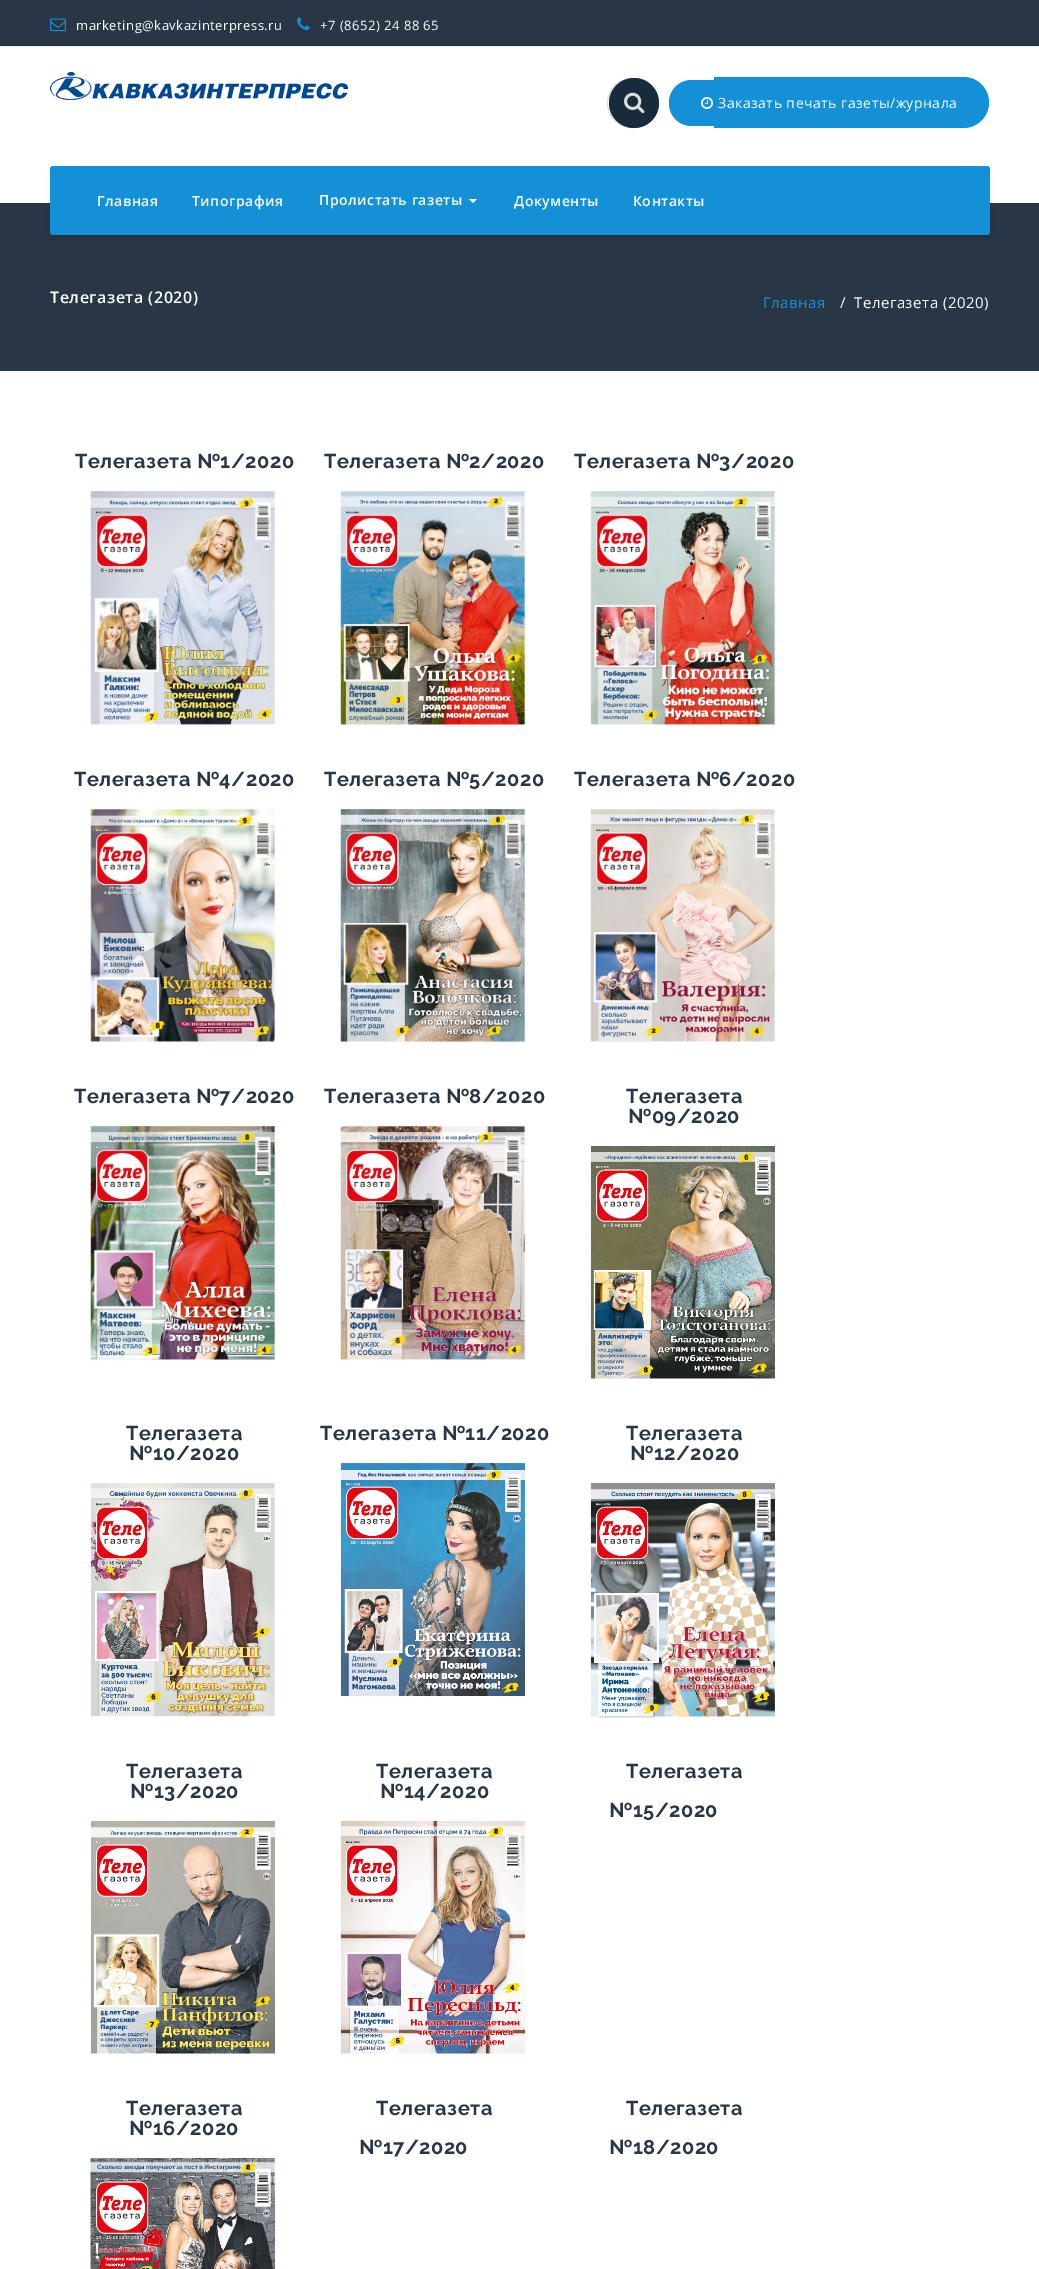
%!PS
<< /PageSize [1039 2269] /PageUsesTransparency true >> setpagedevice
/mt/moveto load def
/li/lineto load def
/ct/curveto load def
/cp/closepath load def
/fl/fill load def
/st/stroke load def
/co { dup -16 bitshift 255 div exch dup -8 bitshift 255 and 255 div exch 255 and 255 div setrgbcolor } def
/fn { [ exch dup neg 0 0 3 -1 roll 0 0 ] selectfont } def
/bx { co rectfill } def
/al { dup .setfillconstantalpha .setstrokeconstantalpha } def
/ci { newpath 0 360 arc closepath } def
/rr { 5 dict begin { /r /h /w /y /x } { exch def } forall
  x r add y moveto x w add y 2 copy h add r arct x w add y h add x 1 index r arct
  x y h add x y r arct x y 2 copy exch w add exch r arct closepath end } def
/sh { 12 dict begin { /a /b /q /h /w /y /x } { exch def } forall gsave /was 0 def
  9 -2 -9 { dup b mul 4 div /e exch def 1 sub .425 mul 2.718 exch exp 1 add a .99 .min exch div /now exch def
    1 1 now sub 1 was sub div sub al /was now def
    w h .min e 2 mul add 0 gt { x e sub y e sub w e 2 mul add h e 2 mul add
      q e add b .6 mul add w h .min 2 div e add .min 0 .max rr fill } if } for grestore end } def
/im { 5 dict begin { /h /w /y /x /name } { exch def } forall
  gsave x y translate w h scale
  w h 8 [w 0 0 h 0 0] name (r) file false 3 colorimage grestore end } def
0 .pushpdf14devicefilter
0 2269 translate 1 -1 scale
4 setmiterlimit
0 0 1039 2269 16#FFFFFF bx
0 0 1039 46 16#283645 bx
0 46 1039 1 16#E6E9ED bx
(media/1.raw) 50 18 16 14 im
(media/2.raw) 297 17 13 13 im
(media/3.raw) 50 72 298 28 im
16#DCDCDC co
607.5 78.5 51 49 24.5 rr st
16#172B3C co
634 103 25 ci fl
(media/4.raw) 624 92 21 22 im
16#1490D7 co
691.5 80 mt 714 80 li 714 126 li 691.5 126 li 679 126 669 116 669 103.5 ct 669 102.5 li 669 90 679 80 691.5 80 ct cp fl
714 77 mt 963.5 77 li 977.5 77 989 88.5 989 102.5 ct 989 116.5 977.5 128 963.5 128 ct 714 128 li cp fl
(media/5.raw) 701 97 12 12 im
0 203 1039 168 16#283645 bx
16#000000 co
55 177 930 59 0 6 .18 sh
16#1490D7 co
50 166 940 69 3 rr fl
16#FFFFFF co
469 199 mt 477 199 li 473 203 li cp fl
(media/6.raw) 90 490 186 238 im
(media/7.raw) 336 490 190 237 im
(media/8.raw) 590 490 186 237 im
(media/9.raw) 86 805 190 238 im
(media/10.raw) 339 808 187 236 im
(media/11.raw) 589 809 187 235 im
(media/12.raw) 87 1125 189 237 im
(media/13.raw) 336 1122 190 240 im
(media/14.raw) 590 1146 185 234 im
(media/15.raw) 90 1483 185 234 im
(media/16.raw) 340 1461 186 237 im
(media/17.raw) 590 1483 185 235 im
(media/18.raw) 90 1821 185 233 im
(media/19.raw) 340 1821 186 234 im
(media/20.raw) 90 2157 185 112 im
/OpenSans-Regular 13 fn
76 30 mt .5 0 (marketing@kavkazinterpress.ru) ashow
320 30 mt .5 0 (+7 \(8652\) 24 88 65) ashow
/OpenSans-Regular 14 fn
718 108 mt .5 0 (Заказать печать газеты/журнала) ashow
/OpenSans-SemiBold 14 fn
97 206 mt .5 0 (Главная) ashow
192 206 mt .5 0 (Типография) ashow
319 205 mt .5 0 (Пролистать газеты) ashow
514 206 mt .5 0 (Документы) ashow
633 206 mt .5 0 (Контакты) ashow
/OpenSans-SemiBold 16 fn
50 303 mt .5 0 (Телегазета \(2020\)) ashow
/OpenSans-Regular 15 fn
16#1490D7 co
763 308 mt .5 0 (Главная) ashow
16#FFFFFF co
840 308 mt .5 0 (/) ashow
854 308 mt .5 0 (Телегазета \(2020\)) ashow
/Raleway-Bold 20 fn
16#283645 co
75 468 mt .5 0 (Телегазета №1/2020) ashow
324 468 mt .5 0 (Телегазета №2/2020) ashow
574 468 mt .5 0 (Телегазета №3/2020) ashow
74 786 mt .5 0 (Телегазета №4/2020) ashow
324 786 mt .5 0 (Телегазета №5/2020) ashow
574 786 mt .5 0 (Телегазета №6/2020) ashow
74 1103 mt .5 0 (Телегазета №7/2020) ashow
324 1103 mt .5 0 (Телегазета №8/2020) ashow
626 1103 mt .5 0 (Телегазета) ashow
628 1123 mt .5 0 (№09/2020) ashow
126 1440 mt .5 0 (Телегазета) ashow
129 1460 mt .5 0 (№10/2020) ashow
320 1440 mt .5 0 (Телегазета №11/2020) ashow
626 1440 mt .5 0 (Телегазета) ashow
630 1460 mt .5 0 (№12/2020) ashow
126 1778 mt .5 0 (Телегазета) ashow
130 1798 mt .5 0 (№13/2020) ashow
376 1778 mt .5 0 (Телегазета) ashow
380 1798 mt .5 0 (№14/2020) ashow
626 1778 mt .5 0 (Телегазета) ashow
609 1817 mt .5 0 (№15/2020) ashow
126 2115 mt .5 0 (Телегазета) ashow
129 2135 mt .5 0 (№16/2020) ashow
376 2115 mt .5 0 (Телегазета) ashow
359 2154 mt .5 0 (№17/2020) ashow
626 2115 mt .5 0 (Телегазета) ashow
609 2154 mt .5 0 (№18/2020) ashow
.poppdf14devicefilter showpage
